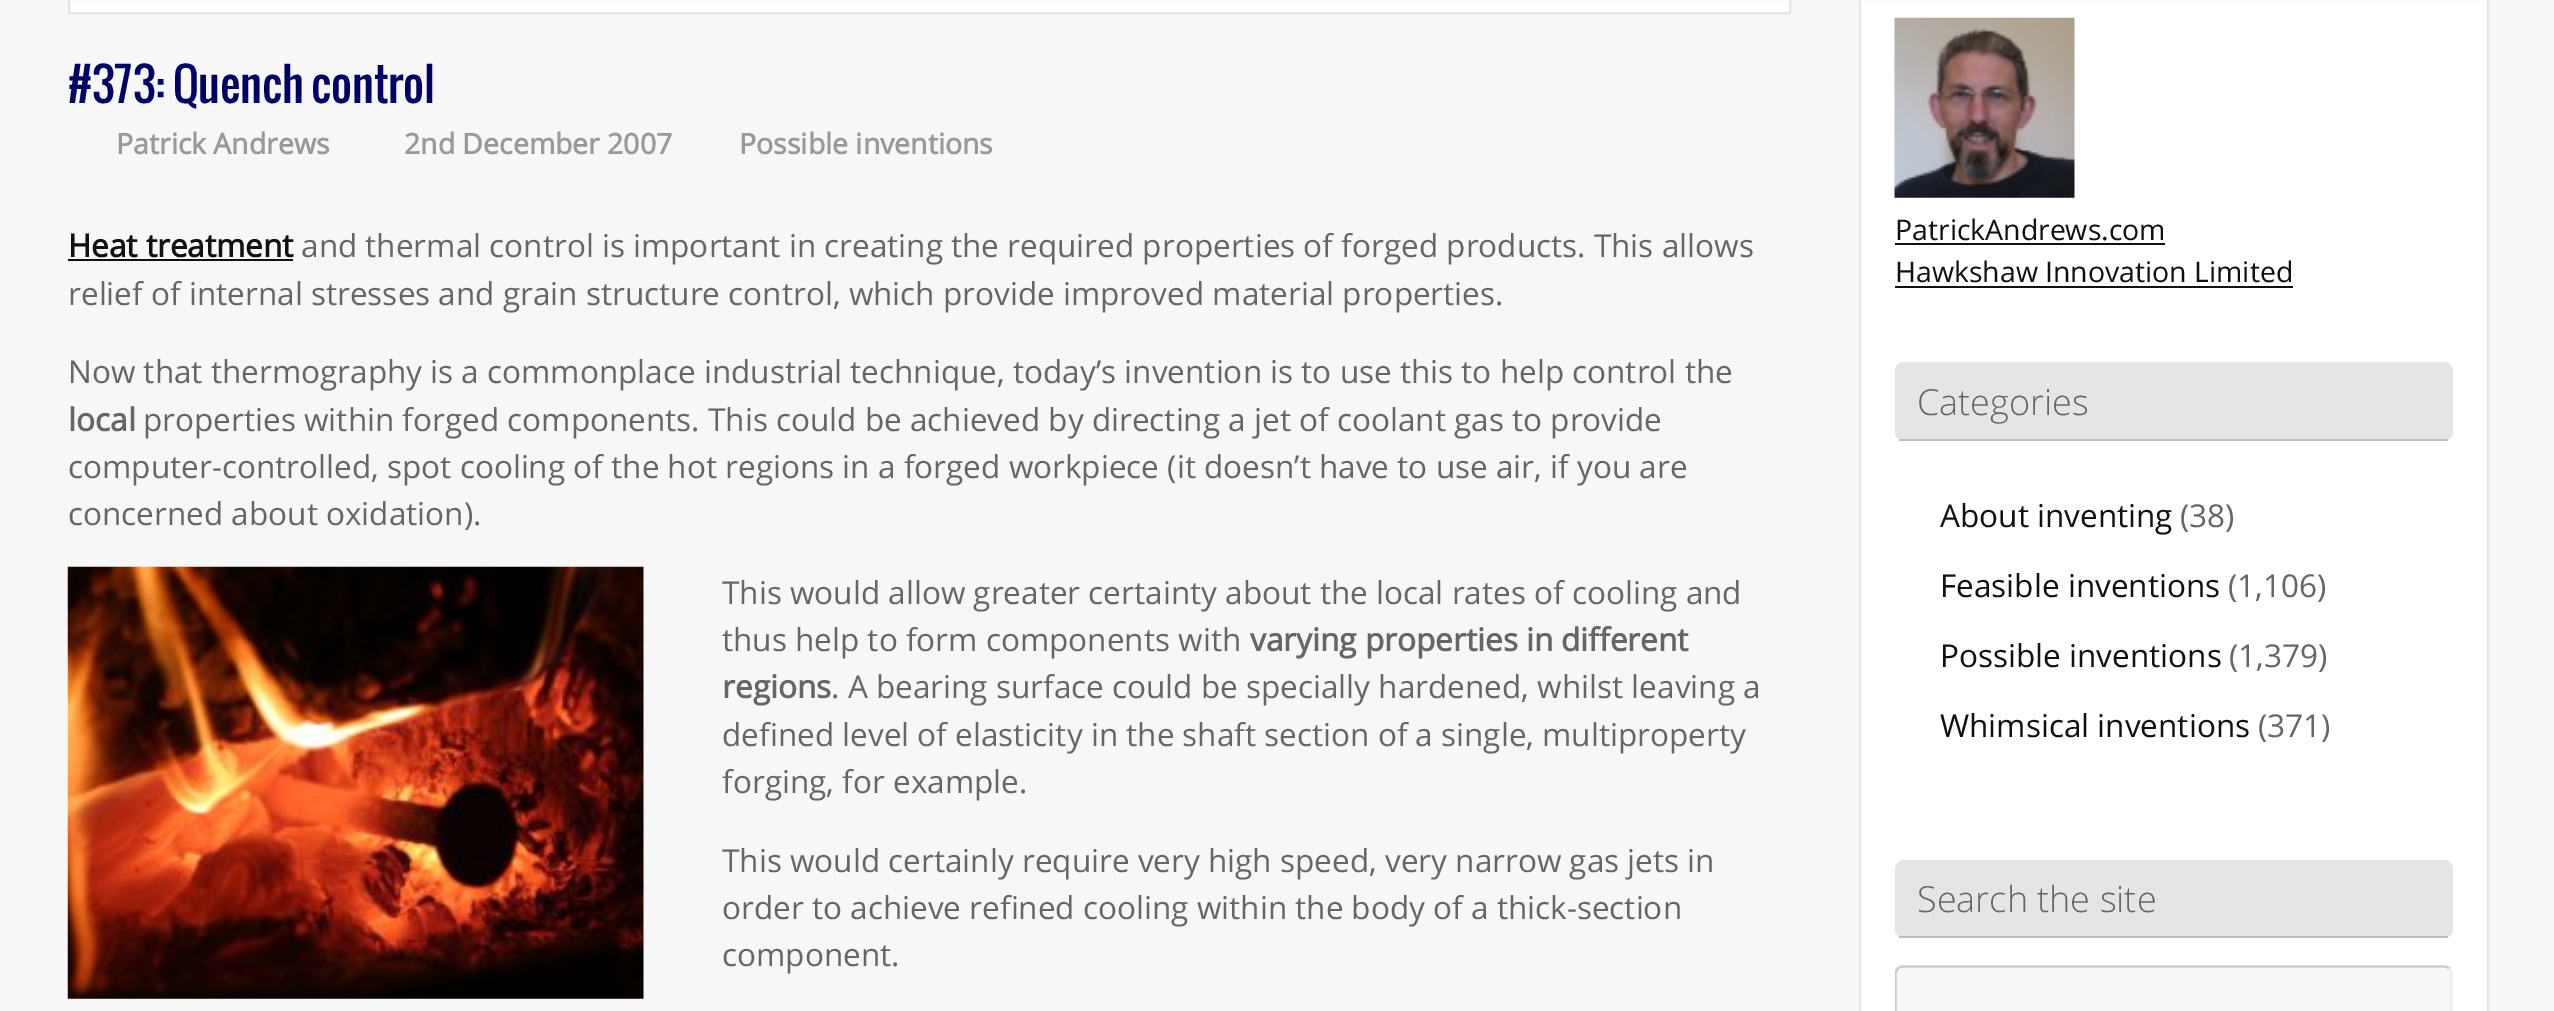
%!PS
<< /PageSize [2554 1011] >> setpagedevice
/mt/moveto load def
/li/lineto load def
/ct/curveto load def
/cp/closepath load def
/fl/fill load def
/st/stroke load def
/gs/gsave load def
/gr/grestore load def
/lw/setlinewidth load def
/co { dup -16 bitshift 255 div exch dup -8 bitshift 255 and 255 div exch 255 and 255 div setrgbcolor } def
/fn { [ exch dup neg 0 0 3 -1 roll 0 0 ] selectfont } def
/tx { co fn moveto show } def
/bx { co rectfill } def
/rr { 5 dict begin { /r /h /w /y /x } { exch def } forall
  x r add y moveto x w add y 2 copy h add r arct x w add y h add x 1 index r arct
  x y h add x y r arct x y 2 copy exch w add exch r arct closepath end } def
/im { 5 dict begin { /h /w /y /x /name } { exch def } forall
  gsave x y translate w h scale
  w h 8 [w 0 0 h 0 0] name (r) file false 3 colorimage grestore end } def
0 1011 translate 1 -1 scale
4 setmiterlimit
0 0 2554 1011 16#F7F7F7 bx
16#FFFFFF co
69 -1 mt 1790 -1 li 1790 13 li 69 13 li cp gs fl gr
16#E5E5E5 co
2 lw
st
68 259 225 2 16#111111 bx
(media/1.raw) 67 566 577 433 im
16#FFFFFF co
1860 -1 mt 2488 -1 li 2488 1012 li 1860 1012 li cp gs fl gr
16#E5E5E5 co
st
(media/2.raw) 1894 17 181 181 im
1895 243 270 2 16#111111 bx
1895 286 398 2 16#111111 bx
16#E5E5E5 co
1895 362 558 79 9 rr fl
1899 439 549 2 16#BDBDBD bx
16#E5E5E5 co
1895 860 558 78 9 rr fl
1899 936 549 2 16#BDBDBD bx
16#F7F7F7 co
1895 965 558 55 9 rr fl
16#EEEEEE co
2.2 lw
2449 968.5 mt 2450.5 970 2451.5 972 2451.5 974 ct 2451.5 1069 li 2451.5 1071 2450.5 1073 2449 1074.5 ct 2447.5 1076 2445.5 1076.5 2443.5 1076.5 ct 1903.5 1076.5 li 1901.5 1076.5 1899.5 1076 1898 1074.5 ct st
gs
1895 965 558 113 rectclip
16#CCCCCC co
1898 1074.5 mt 1896.5 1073 1895.5 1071 1895.5 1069 ct 1895.5 974 li 1895.5 972 1896.5 970 1898 968.5 ct 1899.5 967 1901.5 966.5 1903.5 966.5 ct 2443.5 966.5 li 2445.5 966.5 2447.5 967 2449 968.5 ct st
gr
(#373: Quench control) 68 103 /Oswald-Regular 45 16#000066 tx
(Patrick Andrews) 116 154 /OpenSans-Bold 28.4 16#999999 tx
(2nd December 2007) 404 154 /OpenSans-Bold 28.4 16#999999 tx
(Possible inventions) 739 154 /OpenSans-Bold 28.4 16#999999 tx
(Heat treatment) 68 257 /OpenSans-Bold 31.5 16#111111 tx
(and thermal control is important in creating the required properties of forged products. This allows) 301 257 /OpenSans-Regular 31.5 16#666666 tx
(relief of internal stresses and grain structure control, which provide improved material properties.) 68 305 /OpenSans-Regular 31.5 16#666666 tx
(Now that thermography is a commonplace industrial technique, today’s invention is to use this to help control the) 68 383 /OpenSans-Regular 31.5 16#666666 tx
(local) 68 431 /OpenSans-Bold 31.5 16#666666 tx
(properties within forged components. This could be achieved by directing a jet of coolant gas to provide) 143 431 /OpenSans-Regular 31.5 16#666666 tx
(computer-controlled, spot cooling of the hot regions in a forged workpiece \(it doesn’t have to use air, if you are) 68 478 /OpenSans-Regular 31.5 16#666666 tx
(concerned about oxidation\).) 68 525 /OpenSans-Regular 31.5 16#666666 tx
(This would allow greater certainty about the local rates of cooling and) 722 604 /OpenSans-Regular 31.5 16#666666 tx
(thus help to form components with) 722 651 /OpenSans-Regular 31.5 16#666666 tx
(varying properties in different) 1250 651 /OpenSans-Bold 31.5 16#666666 tx
(regions) 722 698 /OpenSans-Bold 31.5 16#666666 tx
(. A bearing surface could be specially hardened, whilst leaving a) 831 698 /OpenSans-Regular 31.5 16#666666 tx
(defined level of elasticity in the shaft section of a single, multiproperty) 722 746 /OpenSans-Regular 31.5 16#666666 tx
(forging, for example.) 722 793 /OpenSans-Regular 31.5 16#666666 tx
(This would certainly require very high speed, very narrow gas jets in) 722 872 /OpenSans-Regular 31.5 16#666666 tx
(order to achieve refined cooling within the body of a thick-section) 722 919 /OpenSans-Regular 31.5 16#666666 tx
(component.) 722 966 /OpenSans-Regular 31.5 16#666666 tx
(PatrickAndrews.com) 1895 240 /OpenSans-Regular 28.4 16#111111 tx
(Hawkshaw Innovation Limited) 1895 282 /OpenSans-Regular 28.4 16#111111 tx
(Categories) 1917 415 /OpenSans-Light 36 16#666666 tx
(About inventing) 1940 527 /OpenSans-Regular 31.5 16#111111 tx
(\(38\)) 2180 527 /OpenSans-Regular 31.5 16#666666 tx
(Feasible inventions) 1940 597 /OpenSans-Regular 31.5 16#111111 tx
(\(1,106\)) 2228 597 /OpenSans-Regular 31.5 16#666666 tx
(Possible inventions) 1940 667 /OpenSans-Regular 31.5 16#111111 tx
(\(1,379\)) 2229 667 /OpenSans-Regular 31.5 16#666666 tx
(Whimsical inventions) 1940 737 /OpenSans-Regular 31.5 16#111111 tx
(\(371\)) 2258 737 /OpenSans-Regular 31.5 16#666666 tx
(Search the site) 1917 912 /OpenSans-Light 36 16#666666 tx
showpage
